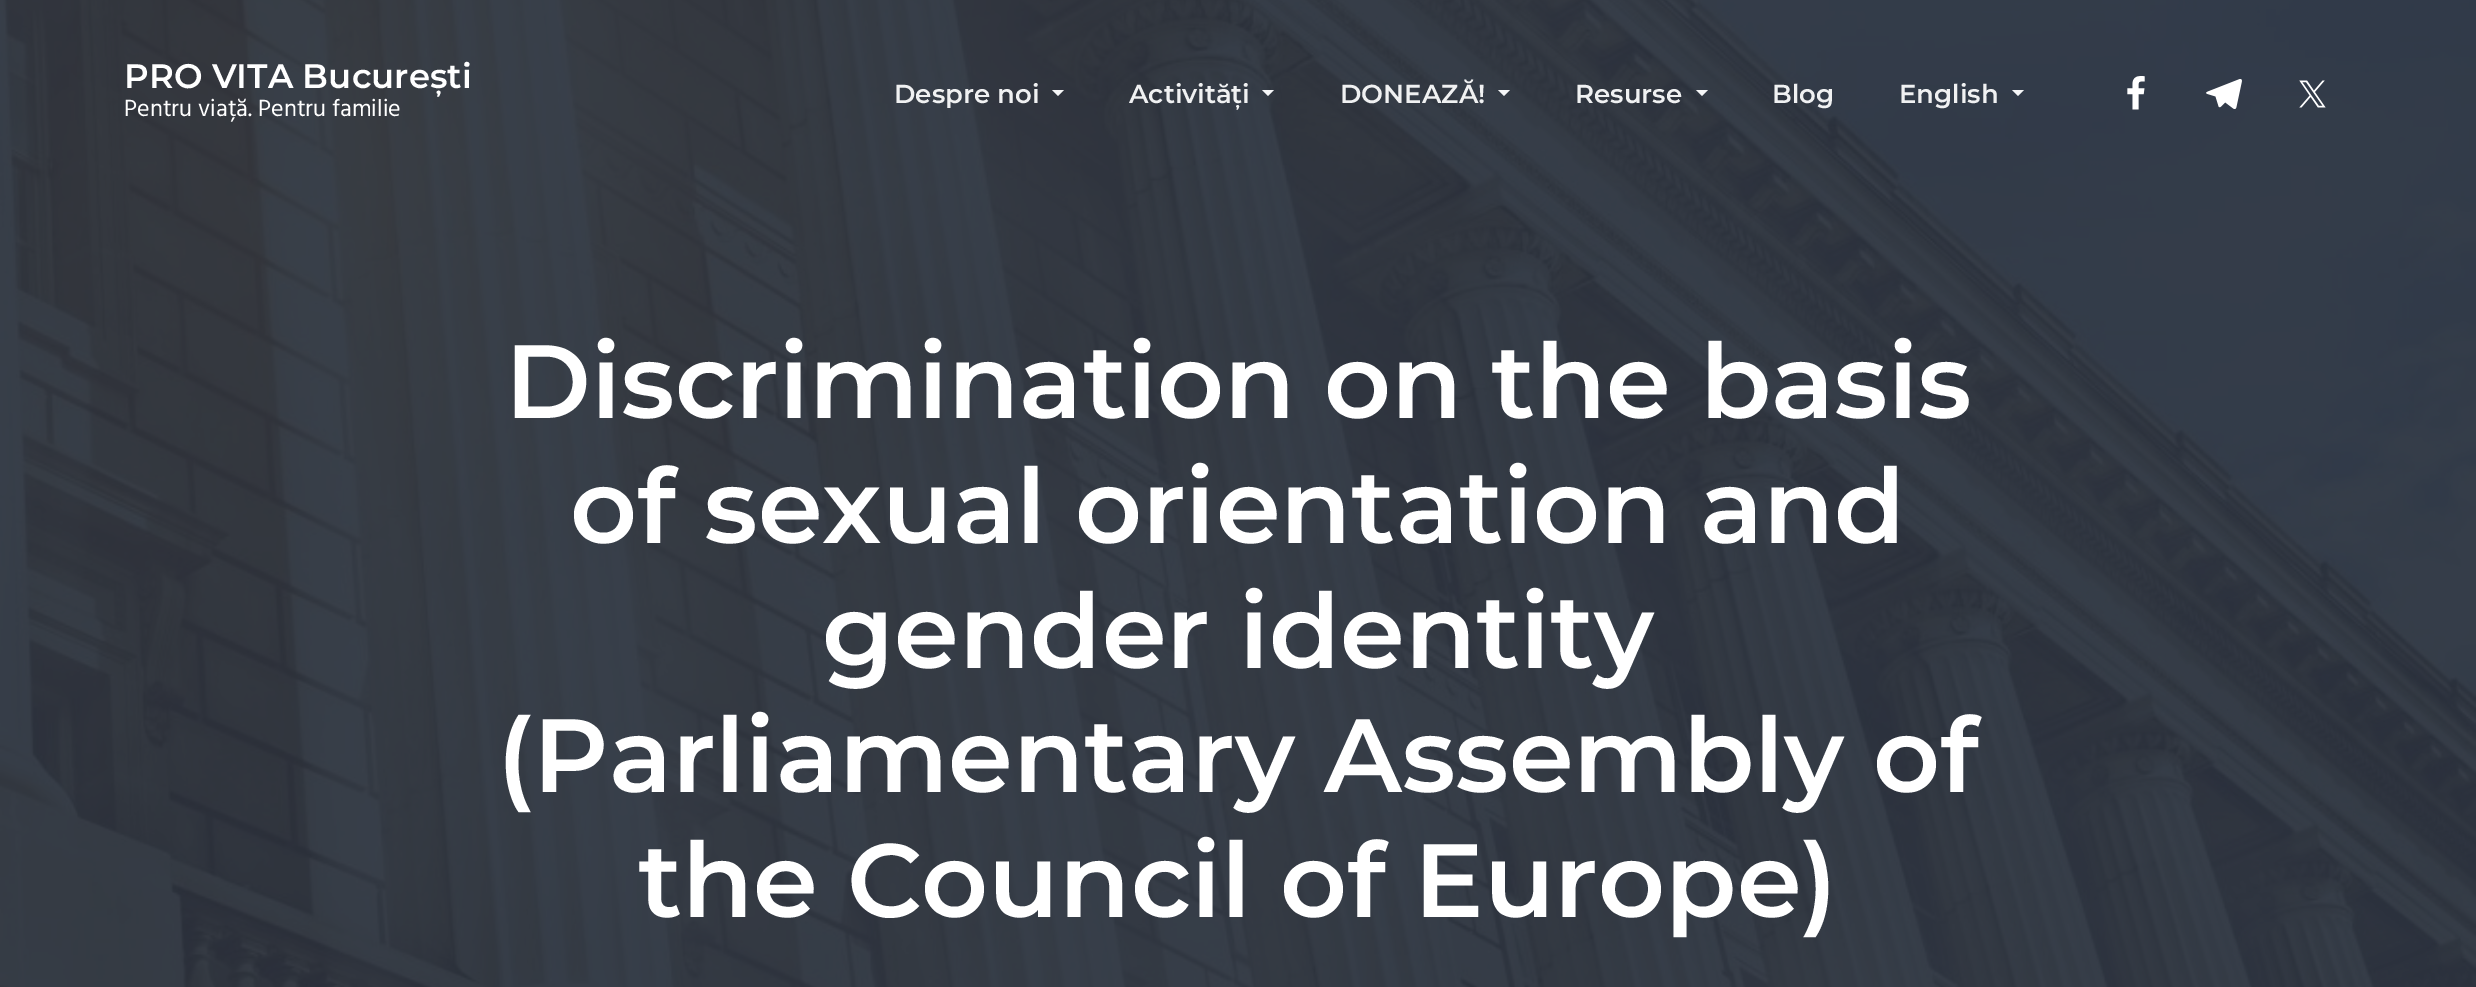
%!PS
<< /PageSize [2476 987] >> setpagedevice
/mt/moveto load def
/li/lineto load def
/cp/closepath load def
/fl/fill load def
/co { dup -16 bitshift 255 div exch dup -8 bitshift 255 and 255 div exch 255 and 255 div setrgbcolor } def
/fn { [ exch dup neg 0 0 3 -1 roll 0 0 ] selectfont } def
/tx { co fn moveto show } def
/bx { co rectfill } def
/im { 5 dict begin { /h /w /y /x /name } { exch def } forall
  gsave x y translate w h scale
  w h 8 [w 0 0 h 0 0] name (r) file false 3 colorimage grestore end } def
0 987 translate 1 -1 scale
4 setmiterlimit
0 0 2476 987 16#FFFFFF bx
(media/4.raw) 0 0 2476 987 im
16#F6F7F8 co
1052 90 mt 1064 90 li 1058 96 li cp fl
1262 90 mt 1274 90 li 1268 96 li cp fl
1498 90 mt 1510 90 li 1504 96 li cp fl
1696 90 mt 1708 90 li 1702 96 li cp fl
2012 90 mt 2024 90 li 2018 96 li cp fl
(media/1.raw) 2127 76 18 34 im
(media/2.raw) 2206 79 36 30 im
(media/3.raw) 2299 80 27 28 im
(PRO VITA București) 124 88 /Montserrat-Thin 34 16#FFFFFF tx
(Pentru viață. Pentru familie) 124 116 /Hind-Regular 24 16#FFFFFF tx
(Despre noi) 894 103 /Montserrat-Thin 26 16#F0F1F2 tx
(Activități) 1129 103 /Montserrat-Thin 26 16#F0F1F2 tx
(DONEAZĂ!) 1340 103 /Montserrat-Thin 26 16#F0F1F2 tx
(Resurse) 1575 103 /Montserrat-Thin 26 16#F0F1F2 tx
(Blog) 1772 103 /Montserrat-Thin 26 16#F0F1F2 tx
(English) 1899 103 /Montserrat-Thin 26 16#F0F1F2 tx
(Discrimination on the basis) 505 418 /Montserrat-Thin 104 16#FFFFFF tx
(of sexual orientation and) 570 543 /Montserrat-Thin 104 16#FFFFFF tx
(gender identity) 822 668 /Montserrat-Thin 104 16#FFFFFF tx
(\(Parliamentary Assembly of) 497 792 /Montserrat-Thin 104 16#FFFFFF tx
(the Council of Europe\)) 638 917 /Montserrat-Thin 104 16#FFFFFF tx
showpage
